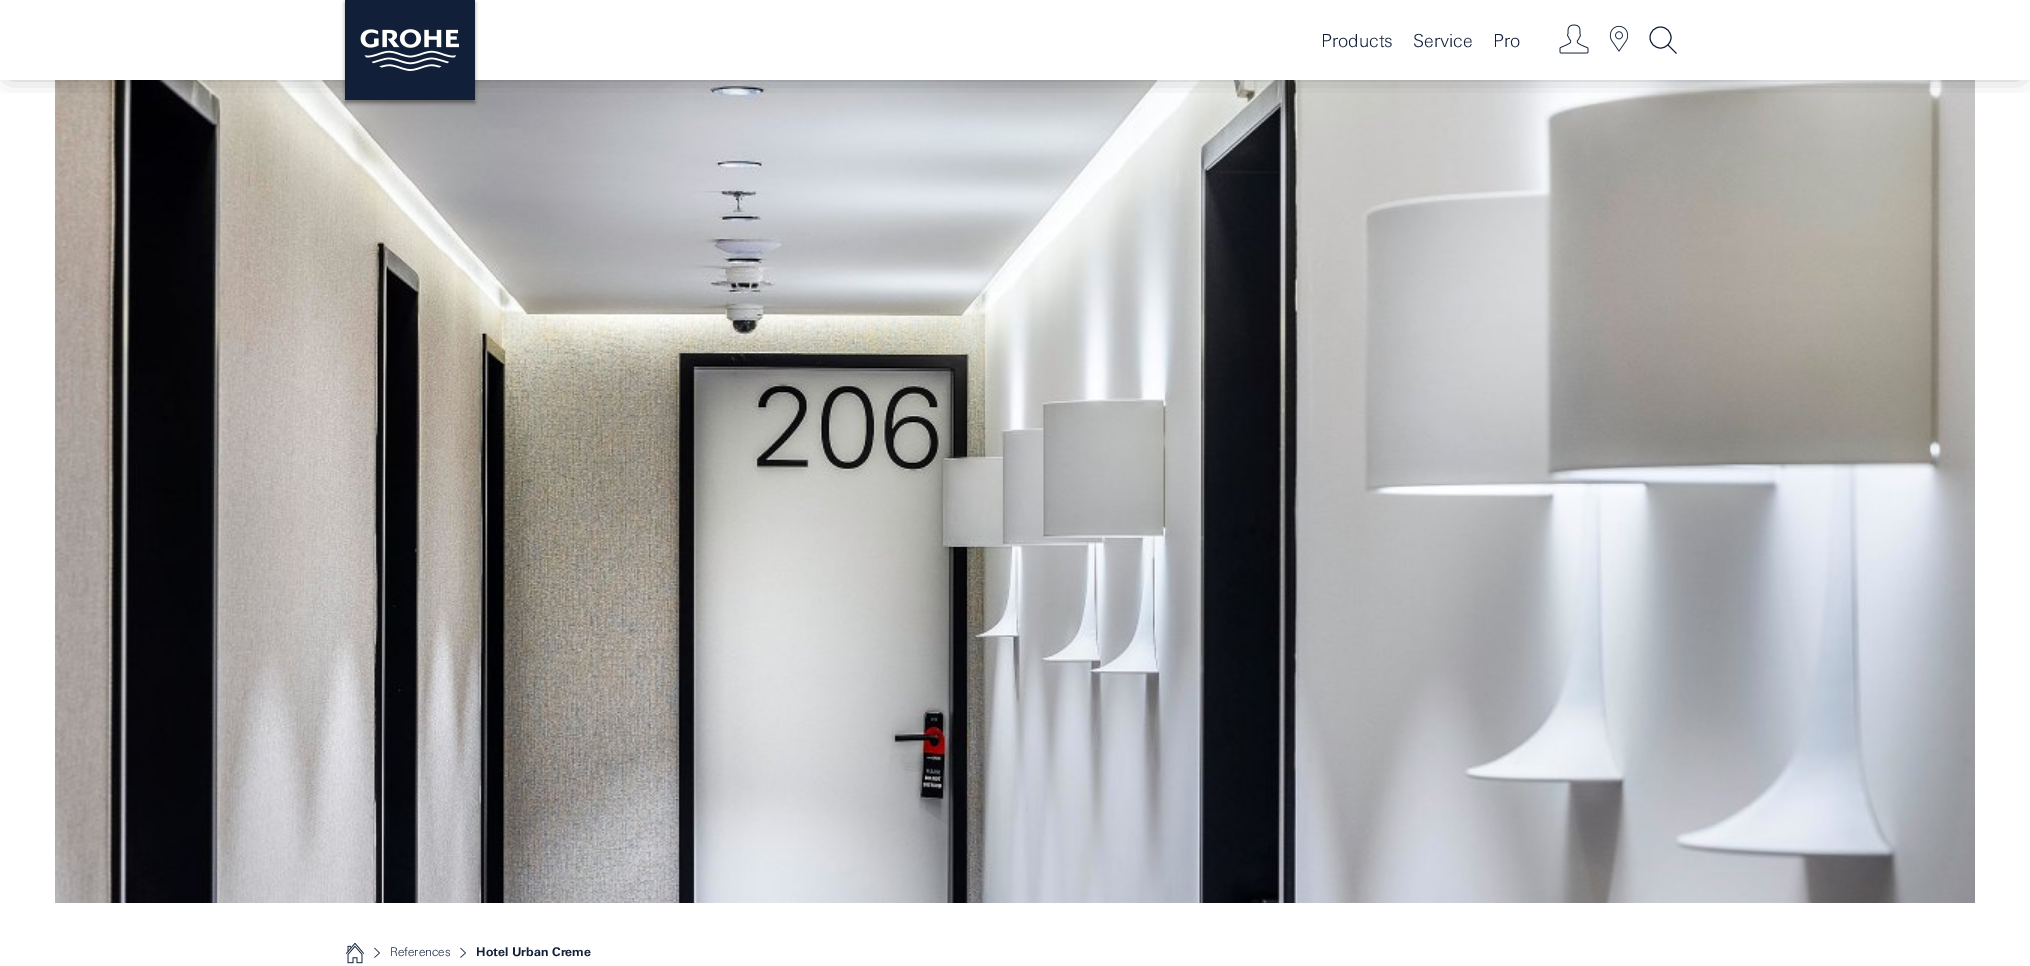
%!PS
<< /PageSize [2030 966] /PageUsesTransparency true >> setpagedevice
/mt/moveto load def
/li/lineto load def
/cp/closepath load def
/st/stroke load def
/gs/gsave load def
/gr/grestore load def
/lw/setlinewidth load def
/co { dup -16 bitshift 255 div exch dup -8 bitshift 255 and 255 div exch 255 and 255 div setrgbcolor } def
/fn { [ exch dup neg 0 0 3 -1 roll 0 0 ] selectfont } def
/tx { co fn moveto show } def
/bx { co rectfill } def
/al { dup .setfillconstantalpha .setstrokeconstantalpha } def
/ci { newpath 0 360 arc closepath } def
/rr { 5 dict begin { /r /h /w /y /x } { exch def } forall
  x r add y moveto x w add y 2 copy h add r arct x w add y h add x 1 index r arct
  x y h add x y r arct x y 2 copy exch w add exch r arct closepath end } def
/sh { 12 dict begin { /a /b /q /h /w /y /x } { exch def } forall gsave /was 0 def
  9 -2 -9 { dup b mul 4 div /e exch def 1 sub .425 mul 2.718 exch exp 1 add a .99 .min exch div /now exch def
    1 1 now sub 1 was sub div sub al /was now def
    w h .min e 2 mul add 0 gt { x e sub y e sub w e 2 mul add h e 2 mul add
      q e add b .6 mul add w h .min 2 div e add .min 0 .max rr fill } if } for grestore end } def
/im { 5 dict begin { /h /w /y /x /name } { exch def } forall
  gsave x y translate w h scale
  w h 8 [w 0 0 h 0 0] name (r) file false 3 colorimage grestore end } def
0 .pushpdf14devicefilter
0 966 translate 1 -1 scale
4 setmiterlimit
0 0 2030 966 16#FFFFFF bx
(media/4.raw) 55 80 1920 823 im
gs
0 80 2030 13 rectclip
16#000000 co
10 13 2010 60 0 12 .4 sh
gr
16#000000 co
345 3 130 100 0 2 .4 sh
345 0 130 100 16#112038 bx
(media/1.raw) 360 29 99 42 im
(media/2.raw) 1559 24 30 30 im
(media/3.raw) 1609 25 20 27 im
1676.5 53.5 mt 1667.5 44.5 li cp st
1660.5 37.5 10.5 ci st
(media/5.raw) 346 943 18 21 im
.5 lw
374.5 948 mt 379.5 953 li 374.5 957.5 li st
460.5 948 mt 465.5 953 li 460.5 957.5 li st
(Products) 1321 47 /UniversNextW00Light-Light 18 16#112038 tx
(Service) 1413 47 /UniversNextW00Light-Light 18 16#112038 tx
(Pro) 1493 47 /UniversNextW00Light-Light 18 16#112038 tx
(References) 390 956 /UniversNextW00Light-Light 12 16#112038 tx
(Hotel Urban Creme) 476 956 /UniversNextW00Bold-Bold 12 16#112038 tx
.poppdf14devicefilter showpage
